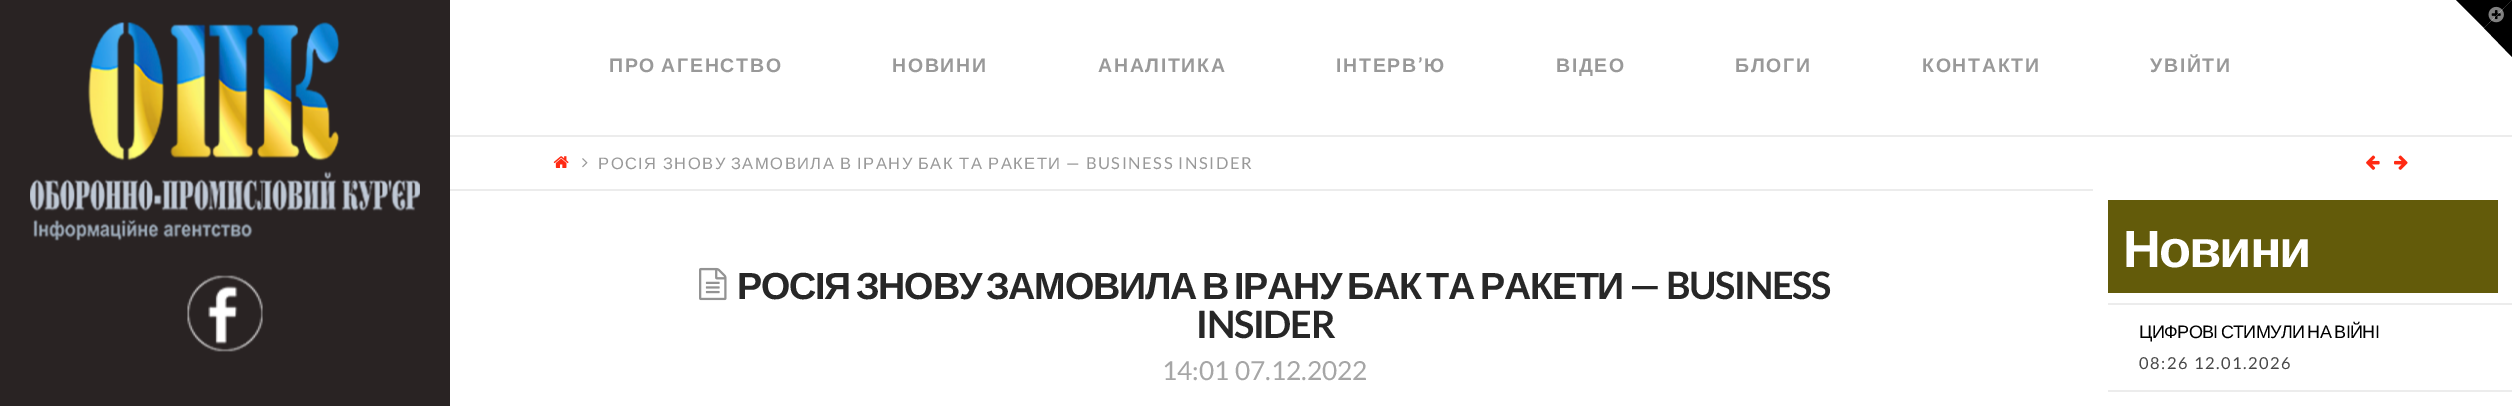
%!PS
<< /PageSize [2512 406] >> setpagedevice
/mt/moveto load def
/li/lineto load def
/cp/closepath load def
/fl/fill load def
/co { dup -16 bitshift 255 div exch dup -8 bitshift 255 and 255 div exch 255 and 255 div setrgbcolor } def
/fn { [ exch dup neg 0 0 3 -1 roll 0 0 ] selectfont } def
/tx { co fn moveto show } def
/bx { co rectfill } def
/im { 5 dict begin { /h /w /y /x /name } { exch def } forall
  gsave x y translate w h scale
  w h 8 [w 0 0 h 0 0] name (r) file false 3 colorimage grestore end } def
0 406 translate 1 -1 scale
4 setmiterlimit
0 0 2512 406 16#FFFFFF bx
16#000000 co
2456 0 mt 2512 0 li 2484 28 li cp fl
2512 0 mt 2512 57 li 2484 28 li cp fl
(media/1.raw) 2488 6 16 17 im
0 0 450 406 16#292323 bx
(media/2.raw) 30 22 390 219 im
(media/3.raw) 187 275 76 77 im
450 135 2062 2 16#ECECEC bx
450 189 1643 2 16#ECECEC bx
(media/4.raw) 553 156 16 12 im
(media/5.raw) 582 158 6 10 im
(media/6.raw) 2366 155 14 15 im
(media/7.raw) 2394 155 14 15 im
(media/8.raw) 699 267 28 34 im
2108 200 390 93 16#635B0A bx
2108 303 404 2 16#ECECEC bx
2108 390 404 2 16#ECECEC bx
/LiberationSans-Bold 19.5 fn
16#999999 co
609 72 mt -2 0 32 1.7 0 (ПРО АГЕНСТВО) awidthshow
892 72 mt 1.7 0 (НОВИНИ) ashow
1098 72 mt 1.7 0 (АНАЛІТИКА) ashow
1336 72 mt 1.7 0 (ІНТЕРВ) ashow
/Lato-Bold 19.5 fn
1418 72 mt 1.7 0 (’) ashow
/LiberationSans-Bold 19.5 fn
1424 72 mt 1.7 0 (Ю) ashow
1556 72 mt 1.7 0 (ВІДЕО) ashow
1735 72 mt 1.7 0 (БЛОГИ) ashow
1922 72 mt 1.7 0 (КОНТАКТИ) ashow
2150 72 mt 1.7 0 (УВІЙТИ) ashow
/LiberationSans-Regular 16.5 fn
598 169 mt 1.5 0 (РОСІЯ) ashow
663 169 mt 1.5 0 (ЗНОВУ) ashow
731 169 mt 1.5 0 (ЗАМОВИЛА) ashow
840 169 mt 1.5 0 (В) ashow
857 169 mt 1.5 0 (ІРАНУ) ashow
918 169 mt 1.5 0 (БАК) ashow
959 169 mt 1.5 0 (ТА) ashow
988 169 mt 1.5 0 (РАКЕТИ) ashow
/Lato-Regular 16.5 fn
1066 169 mt 1.5 0 (— BUSINESS INSIDER) ashow
/LiberationSans-Bold 37.75 fn
16#272727 co
737 299 mt -1.25 0 (РОСІЯ) ashow
856 299 mt -1.25 0 (ЗНОВУ) ashow
986 299 mt -1.25 0 (ЗАМОВИЛА) ashow
1202 299 mt -1.25 0 (В) ashow
1234 299 mt -1.25 0 (ІРАНУ) ashow
1347 299 mt -1.25 0 (БАК) ashow
1426 299 mt -1.25 0 (ТА) ashow
1480 299 mt -1.25 0 (РАКЕТИ) ashow
/Lato-Bold 37.75 fn
1629 299 mt -1.25 0 (— BUSINESS) ashow
1196 338 mt -1.25 0 (INSIDER) ashow
(14:01 07.12.2022) 1162 380 /Lato-Regular 26.25 16#A6A6A6 tx
/LiberationSans-Bold 52.5 fn
16#FFFFFF co
2123 267 mt -2 0 (Новини) ashow
/LiberationSans-Regular 18 fn
16#000000 co
2139 338 mt -1.5 0 32 -.6 0 (ЦИФРОВІ СТИМУЛИ НА ВІЙНІ) awidthshow
/Lato-Regular 16.5 fn
16#484848 co
2139 369 mt 1.5 0 (08:26 12.01.2026) ashow
showpage
